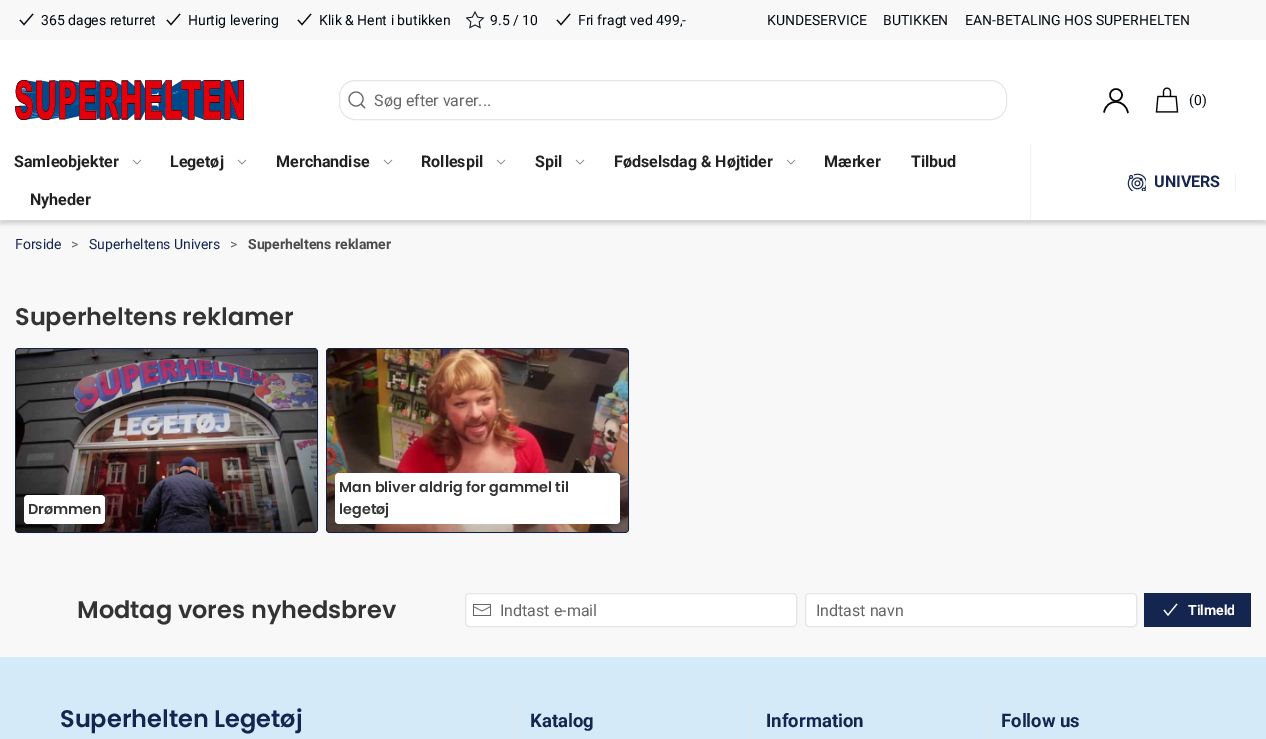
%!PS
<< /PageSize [1266 739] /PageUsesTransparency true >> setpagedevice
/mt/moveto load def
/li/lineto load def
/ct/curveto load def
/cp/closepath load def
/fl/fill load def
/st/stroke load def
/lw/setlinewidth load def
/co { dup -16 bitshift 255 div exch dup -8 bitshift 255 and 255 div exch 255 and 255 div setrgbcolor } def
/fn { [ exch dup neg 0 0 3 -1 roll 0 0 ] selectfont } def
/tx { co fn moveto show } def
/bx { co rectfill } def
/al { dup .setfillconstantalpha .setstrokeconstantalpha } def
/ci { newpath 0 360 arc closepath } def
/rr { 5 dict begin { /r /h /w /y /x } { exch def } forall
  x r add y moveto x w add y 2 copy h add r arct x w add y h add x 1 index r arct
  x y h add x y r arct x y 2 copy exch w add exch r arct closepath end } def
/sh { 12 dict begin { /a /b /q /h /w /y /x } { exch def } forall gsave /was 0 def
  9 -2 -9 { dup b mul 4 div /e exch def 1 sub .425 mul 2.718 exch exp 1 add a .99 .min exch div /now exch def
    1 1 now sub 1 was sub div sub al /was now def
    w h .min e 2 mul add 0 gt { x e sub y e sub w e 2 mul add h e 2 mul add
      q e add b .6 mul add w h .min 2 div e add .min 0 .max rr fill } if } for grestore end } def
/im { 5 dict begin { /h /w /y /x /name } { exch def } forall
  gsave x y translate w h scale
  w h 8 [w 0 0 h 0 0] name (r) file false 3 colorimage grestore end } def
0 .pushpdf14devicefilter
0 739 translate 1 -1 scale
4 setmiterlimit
0 0 1266 739 16#F8F8F9 bx
16#00070D co
1.1 lw
20 20 mt 24 24.5 li 33 14 li st
167 20 mt 171 24.5 li 180 14 li st
298 20 mt 302 24.5 li 311 14 li st
(media/1.raw) 465 11 20 18 im
557 20 mt 561 24.5 li 570 14 li st
16#000000 co
0 148 1266 76 0 2 .15 sh
0 40 1266 180 16#FFFFFF bx
(media/2.raw) 15 80 229 40 im
16#E6E6E6 co
1 lw
339.5 80.5 667 39 15.5 rr st
16#666666 co
1.1 lw
356 99 7 ci st
361 104 mt 365 108 li cp st
16#000000 co
1.5 lw
1116 95 6 ci st
1104 112.5 mt 1106.5 98 1125.5 98.5 1128 113 ct st
(media/3.raw) 1155 87 24 26 im
16#808080 co
.7 lw
141 160 mt 137 164 li 133 160 li st
246 160 mt 242 164 li 238 160 li st
392 160 mt 388 164 li 384 160 li st
505 160 mt 501 164 li 497 160 li st
584 160 mt 580 164 li 576 160 li st
795 160 mt 791 164 li 787 160 li st
1030 144 1 76 16#F2F2F2 bx
1235 173 1 18 16#F2F2F2 bx
(media/4.raw) 1127 173 19 18 im
16#14254F co
15 348 303 185 4 rr fl
0.1 al
16#000000 co
1 lw
15.5 348.5 302 184 3.5 rr st
1 al
(media/5.raw) 16 349 301 183 im
16#FFFFFF co
24 495 81 29 4 rr fl
16#14254F co
326 348 303 185 4 rr fl
0.1 al
16#000000 co
326.5 348.5 302 184 3.5 rr st
1 al
(media/6.raw) 327 349 301 183 im
16#FFFFFF co
335 473 285 51 4 rr fl
465 593 332 34 4 rr fl
0.1 al
16#000000 co
465.5 593.5 331 33 3.5 rr st
1 al
(media/7.raw) 473 604 18 12 im
16#FFFFFF co
805 593 332 34 4 rr fl
0.1 al
16#000000 co
805.5 593.5 331 33 3.5 rr st
1 al
1144 593 107 34 16#14254F bx
16#FFFFFF co
1.1 lw
1164 610 mt 1168 615 li 1177 604 li st
0 657 1266 82 16#D4EAF9 bx
515 702 1 37 16#E6E6E6 bx
751 702 1 37 16#E6E6E6 bx
986 702 1 37 16#E6E6E6 bx
(365 dages returret) 41 25 /Roboto-Regular 14 16#00070D tx
(Hurtig levering) 188 25 /Roboto-Regular 14 16#00070D tx
(Klik & Hent i butikken) 319 25 /Roboto-Regular 14 16#00070D tx
(9.5 / 10) 490 25 /Roboto-Regular 14 16#00070D tx
(Fri fragt ved 499,-) 578 25 /Roboto-Regular 14 16#00070D tx
(KUNDESERVICE) 767 25 /Roboto-Regular 14 16#00070D tx
(BUTIKKEN) 883 25 /Roboto-Regular 14 16#00070D tx
(EAN-BETALING HOS SUPERHELTEN) 965 25 /Roboto-Regular 14 16#00070D tx
(Søg efter varer...) 374 106 /Roboto-Regular 16 16#666666 tx
(\(0\)) 1189 105 /Roboto-Regular 14 16#00070D tx
(Samleobjekter) 14 167 /Roboto-Bold 16 16#212121 tx
(Legetøj) 170 167 /Roboto-Bold 16 16#212121 tx
(Merchandise) 276 167 /Roboto-Bold 16 16#212121 tx
(Rollespil) 421 167 /Roboto-Bold 16 16#212121 tx
(Spil) 535 167 /Roboto-Bold 16 16#212121 tx
(Fødselsdag & Højtider) 614 167 /Roboto-Bold 16 16#212121 tx
(Mærker) 824 167 /Roboto-Bold 16 16#212121 tx
(Tilbud) 911 167 /Roboto-Bold 16 16#212121 tx
(Nyheder) 30 205 /Roboto-Bold 16 16#212121 tx
(UNIVERS) 1154 187 /Roboto-Bold 16 16#14254F tx
(Forside) 15 249 /Roboto-Regular 14 16#14254F tx
(>) 71 249 /Roboto-Regular 14 16#666666 tx
(Superheltens Univers) 89 249 /Roboto-Regular 14 16#14254F tx
(>) 230 249 /Roboto-Regular 14 16#666666 tx
(Superheltens reklamer) 248 249 /Roboto-Bold 14 16#4A4A4B tx
(Superheltens reklamer) 15 325 /Poppins-SemiBold 24 16#333333 tx
(Drømmen) 28 514 /Poppins-SemiBold 14.4 16#333333 tx
(Man bliver aldrig for gammel til) 339 492 /Poppins-SemiBold 14.4 16#333333 tx
(legetøj) 339 514 /Poppins-SemiBold 14.4 16#333333 tx
(Modtag vores nyhedsbrev) 77 618 /Poppins-SemiBold 24 16#333333 tx
(Indtast e-mail) 500 616 /Roboto-Regular 16 16#666666 tx
(Indtast navn) 816 616 /Roboto-Regular 16 16#666666 tx
(Tilmeld) 1188 615 /Roboto-Bold 14 16#FFFFFF tx
(Superhelten Legetøj) 60 727 /Poppins-SemiBold 24 16#14254F tx
(Katalog) 530 727 /Roboto-Bold 18.5 16#14254F tx
(Information) 766 727 /Roboto-Bold 18.5 16#14254F tx
(Follow us) 1001 727 /Roboto-Bold 18.5 16#14254F tx
.poppdf14devicefilter showpage
